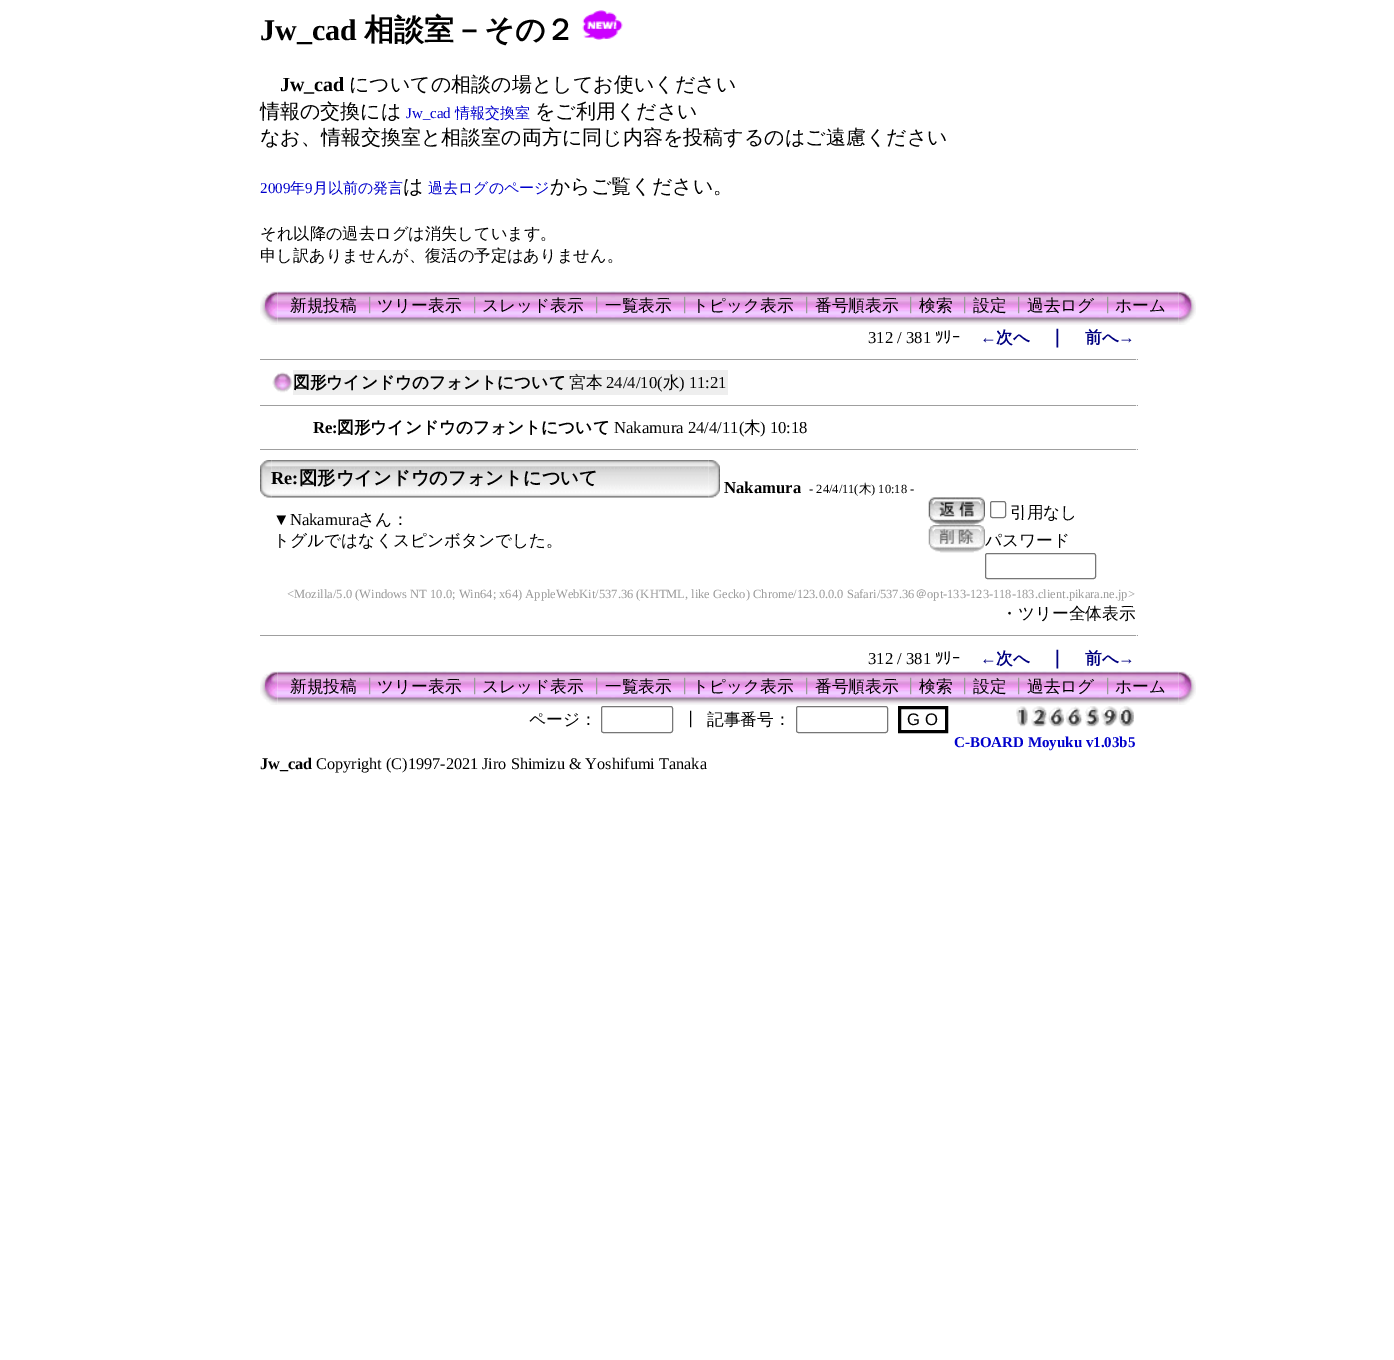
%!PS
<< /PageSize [1394 1360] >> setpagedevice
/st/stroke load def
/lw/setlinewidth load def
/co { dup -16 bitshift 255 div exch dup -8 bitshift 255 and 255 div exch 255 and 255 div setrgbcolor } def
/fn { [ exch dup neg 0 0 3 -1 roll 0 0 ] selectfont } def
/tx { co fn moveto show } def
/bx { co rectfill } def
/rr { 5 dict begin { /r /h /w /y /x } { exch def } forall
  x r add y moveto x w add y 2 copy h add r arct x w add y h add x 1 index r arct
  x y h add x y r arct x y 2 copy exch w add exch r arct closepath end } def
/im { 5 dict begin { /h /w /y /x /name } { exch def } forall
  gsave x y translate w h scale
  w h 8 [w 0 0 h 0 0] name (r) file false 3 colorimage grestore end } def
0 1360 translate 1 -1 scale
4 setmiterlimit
0 0 1394 1360 16#FFFFFF bx
(media/1.raw) 582 10 41 30 im
(media/3.raw) 277 291 902 34 im
(media/2.raw) 260 291 18 34 im
(media/4.raw) 1178 291 18 34 im
260 359 878 1 16#9F9F9F bx
1136 359 1 1 16#EEEEEE bx
(media/5.raw) 272 372 21 21 im
293 370 435 25 16#EEEEEE bx
260 405 878 1 16#9F9F9F bx
1136 405 1 1 16#EEEEEE bx
260 449 878 1 16#9F9F9F bx
1136 449 1 1 16#EEEEEE bx
(media/7.raw) 271 460 438 38 im
(media/6.raw) 260 460 12 38 im
(media/8.raw) 708 460 12 38 im
(media/9.raw) 928 497 57 28 im
16#767676 co
990.5 501.5 15 16 2 rr st
(media/10.raw) 928 525 57 28 im
985.5 553.5 110 25 2 rr st
260 635 878 1 16#9F9F9F bx
1136 635 1 1 16#EEEEEE bx
(media/12.raw) 277 671 902 34 im
(media/11.raw) 260 671 18 34 im
(media/13.raw) 1178 671 18 34 im
16#767676 co
601.5 706.5 71 26 2 rr st
796.5 706.5 91 26 2 rr st
16#000000 co
3 lw
899.5 707.5 47 24 rectstroke
(media/14.raw) 1016 706 12 21 im
(media/15.raw) 1031 706 16 21 im
(media/16.raw) 1047 706 18 21 im
(media/17.raw) 1065 706 18 21 im
(media/18.raw) 1085 706 15 21 im
(media/19.raw) 1101 706 17 21 im
(media/20.raw) 1118 706 16 21 im
(Jw_cad) 260 40 /LiberationSerif-Bold 30 16#000000 tx
(相談室－その２) 364 40 /WenQuanYiZenHei-Bold 30 16#000000 tx
(Jw_cad) 280 91 /LiberationSerif-Bold 20 16#000000 tx
(についての相談の場としてお使いください) 349 91 /WenQuanYiZenHei-Medium 20 16#000000 tx
(情報の交換には) 260 118 /WenQuanYiZenHei-Medium 20 16#000000 tx
(Jw_cad) 406 118 /LiberationSerif-Regular 15 16#0000CC tx
(情報交換室) 455 118 /WenQuanYiZenHei-Medium 15 16#0000CC tx
(をご利用ください) 535 118 /WenQuanYiZenHei-Medium 20 16#000000 tx
(なお、情報交換室と相談室の両方に同じ内容を投稿するのはご遠慮ください) 260 144 /WenQuanYiZenHei-Medium 20 16#000000 tx
(2009) 260 193 /LiberationSerif-Regular 15 16#0000CC tx
(年) 290 193 /WenQuanYiZenHei-Medium 15 16#0000CC tx
(9) 305 193 /LiberationSerif-Regular 15 16#0000CC tx
(月以前の発言) 313 193 /WenQuanYiZenHei-Medium 15 16#0000CC tx
(は) 403 193 /WenQuanYiZenHei-Medium 20 16#000000 tx
(過去ログのページ) 428 193 /WenQuanYiZenHei-Medium 15 16#0000CC tx
(からご覧ください。) 550 193 /WenQuanYiZenHei-Medium 20 16#000000 tx
(それ以降の過去ログは消失しています。) 260 239 /WenQuanYiZenHei-Medium 16.25 16#000000 tx
(申し訳ありませんが、復活の予定はありません。) 260 261 /WenQuanYiZenHei-Medium 16.25 16#000000 tx
(新規投稿) 290 311 /WenQuanYiZenHei-Medium 16.7 16#000000 tx
(┃) 361 311 /WenQuanYiZenHei-Medium 16.7 16#999999 tx
(ツリー表示) 377 311 /WenQuanYiZenHei-Medium 16.7 16#000000 tx
(┃) 466 311 /WenQuanYiZenHei-Medium 16.7 16#999999 tx
(スレッド表示) 482 311 /WenQuanYiZenHei-Medium 16.7 16#000000 tx
(┃) 588 311 /WenQuanYiZenHei-Medium 16.7 16#999999 tx
(一覧表示) 605 311 /WenQuanYiZenHei-Medium 16.7 16#000000 tx
(┃) 676 311 /WenQuanYiZenHei-Medium 16.7 16#999999 tx
(トピック表示) 692 311 /WenQuanYiZenHei-Medium 16.7 16#000000 tx
(┃) 798 311 /WenQuanYiZenHei-Medium 16.7 16#999999 tx
(番号順表示) 815 311 /WenQuanYiZenHei-Medium 16.7 16#000000 tx
(┃) 902 311 /WenQuanYiZenHei-Medium 16.7 16#999999 tx
(検索) 919 311 /WenQuanYiZenHei-Medium 16.7 16#000000 tx
(┃) 956 311 /WenQuanYiZenHei-Medium 16.7 16#999999 tx
(設定) 973 311 /WenQuanYiZenHei-Medium 16.7 16#000000 tx
(┃) 1010 311 /WenQuanYiZenHei-Medium 16.7 16#999999 tx
(過去ログ) 1027 311 /WenQuanYiZenHei-Medium 16.7 16#000000 tx
(┃) 1099 311 /WenQuanYiZenHei-Medium 16.7 16#999999 tx
(ホーム) 1115 311 /WenQuanYiZenHei-Medium 16.7 16#000000 tx
(312 / 381) 868 343 /LiberationSerif-Regular 16.7 16#000000 tx
(ﾂﾘｰ) 935 343 /IPAPGothic-Regular 16.7 16#000000 tx
(←) 980 343 /LiberationSerif-Bold 16.7 16#000080 tx
(次へ) 996 343 /WenQuanYiZenHei-Bold 16.7 16#000080 tx
(｜) 1048 343 /WenQuanYiZenHei-Bold 18.3 16#000080 tx
(前へ) 1085 343 /WenQuanYiZenHei-Bold 16.7 16#000080 tx
(→) 1118 343 /LiberationSerif-Bold 16.7 16#000080 tx
(図形ウインドウのフォントについて) 293 388 /WenQuanYiZenHei-Bold 16.7 16#000000 tx
(宮本) 569 388 /WenQuanYiZenHei-Medium 16.7 16#000000 tx
(24/4/10\() 606 388 /LiberationSerif-Regular 16.7 16#000000 tx
(水) 663 388 /WenQuanYiZenHei-Medium 16.7 16#000000 tx
(\) 11:21) 679 388 /LiberationSerif-Regular 16.7 16#000000 tx
(Re:) 313 433 /LiberationSerif-Bold 16.7 16#000000 tx
(図形ウインドウのフォントについて) 337 433 /WenQuanYiZenHei-Bold 16.7 16#000000 tx
(Nakamura 24/4/11\() 614 433 /LiberationSerif-Regular 16.7 16#000000 tx
(木) 744 433 /WenQuanYiZenHei-Medium 16.7 16#000000 tx
(\) 10:18) 760 433 /LiberationSerif-Regular 16.7 16#000000 tx
(Re:) 271 484 /LiberationSerif-Bold 18.3 16#000000 tx
(図形ウインドウのフォントについて) 299 484 /WenQuanYiZenHei-Bold 18.3 16#000000 tx
(Nakamura) 724 493 /LiberationSerif-Bold 16.7 16#000000 tx
(- 24/4/11\() 809 493 /LiberationSerif-Regular 12.5 16#000000 tx
(木) 859 493 /WenQuanYiZenHei-Medium 12.5 16#000000 tx
(\) 10:18 -) 871 493 /LiberationSerif-Regular 12.5 16#000000 tx
(▼Nakamura) 273 525 /LiberationSerif-Regular 16.7 16#000000 tx
(さん：) 358 525 /WenQuanYiZenHei-Medium 16.7 16#000000 tx
(トグルではなくスピンボタンでした。) 273 546 /WenQuanYiZenHei-Medium 16.7 16#000000 tx
(引用なし) 1010 518 /WenQuanYiZenHei-Medium 16.7 16#000000 tx
(パスワード) 985 546 /WenQuanYiZenHei-Medium 16.7 16#000000 tx
(<Mozilla/5.0 \(Windows NT 10.0; Win64; x64\) AppleWebKit/537.36 \(KHTML, like Gecko\) Chrome/123.0.0.0 Safari/537.36) 287 598 /LiberationSerif-Regular 12.5 16#999999 tx
(＠) 915 598 /WenQuanYiZenHei-Medium 12.5 16#999999 tx
(opt-133-123-118-183.client.pikara.ne.jp>) 927 598 /LiberationSerif-Regular 12.5 16#999999 tx
(・ツリー全体表示) 1001 619 /WenQuanYiZenHei-Medium 16.7 16#000000 tx
(312 / 381) 868 664 /LiberationSerif-Regular 16.7 16#000000 tx
(ﾂﾘｰ) 935 664 /IPAPGothic-Regular 16.7 16#000000 tx
(←) 980 664 /LiberationSerif-Bold 16.7 16#000080 tx
(次へ) 996 664 /WenQuanYiZenHei-Bold 16.7 16#000080 tx
(｜) 1048 664 /WenQuanYiZenHei-Bold 18.3 16#000080 tx
(前へ) 1085 664 /WenQuanYiZenHei-Bold 16.7 16#000080 tx
(→) 1118 664 /LiberationSerif-Bold 16.7 16#000080 tx
(新規投稿) 290 692 /WenQuanYiZenHei-Medium 16.7 16#000000 tx
(┃) 361 692 /WenQuanYiZenHei-Medium 16.7 16#999999 tx
(ツリー表示) 377 692 /WenQuanYiZenHei-Medium 16.7 16#000000 tx
(┃) 466 692 /WenQuanYiZenHei-Medium 16.7 16#999999 tx
(スレッド表示) 482 692 /WenQuanYiZenHei-Medium 16.7 16#000000 tx
(┃) 588 692 /WenQuanYiZenHei-Medium 16.7 16#999999 tx
(一覧表示) 605 692 /WenQuanYiZenHei-Medium 16.7 16#000000 tx
(┃) 676 692 /WenQuanYiZenHei-Medium 16.7 16#999999 tx
(トピック表示) 692 692 /WenQuanYiZenHei-Medium 16.7 16#000000 tx
(┃) 798 692 /WenQuanYiZenHei-Medium 16.7 16#999999 tx
(番号順表示) 815 692 /WenQuanYiZenHei-Medium 16.7 16#000000 tx
(┃) 902 692 /WenQuanYiZenHei-Medium 16.7 16#999999 tx
(検索) 919 692 /WenQuanYiZenHei-Medium 16.7 16#000000 tx
(┃) 956 692 /WenQuanYiZenHei-Medium 16.7 16#999999 tx
(設定) 973 692 /WenQuanYiZenHei-Medium 16.7 16#000000 tx
(┃) 1010 692 /WenQuanYiZenHei-Medium 16.7 16#999999 tx
(過去ログ) 1027 692 /WenQuanYiZenHei-Medium 16.7 16#000000 tx
(┃) 1099 692 /WenQuanYiZenHei-Medium 16.7 16#999999 tx
(ホーム) 1115 692 /WenQuanYiZenHei-Medium 16.7 16#000000 tx
(ページ：) 529 725 /WenQuanYiZenHei-Medium 16.7 16#000000 tx
(┃) 682 725 /WenQuanYiZenHei-Medium 16.7 16#000000 tx
(記事番号：) 707 725 /WenQuanYiZenHei-Medium 16.7 16#000000 tx
(G O) 907 725 /LiberationSans-Regular 16.7 16#000000 tx
(C-BOARD Moyuku v1.03b5) 954 747 /LiberationSerif-Bold 15 16#0000CC tx
(Jw_cad) 260 769 /LiberationSerif-Bold 16.25 16#000000 tx
(Copyright \(C\)1997-2021 Jiro Shimizu & Yoshifumi Tanaka) 316 769 /LiberationSerif-Regular 16.25 16#000000 tx
showpage
